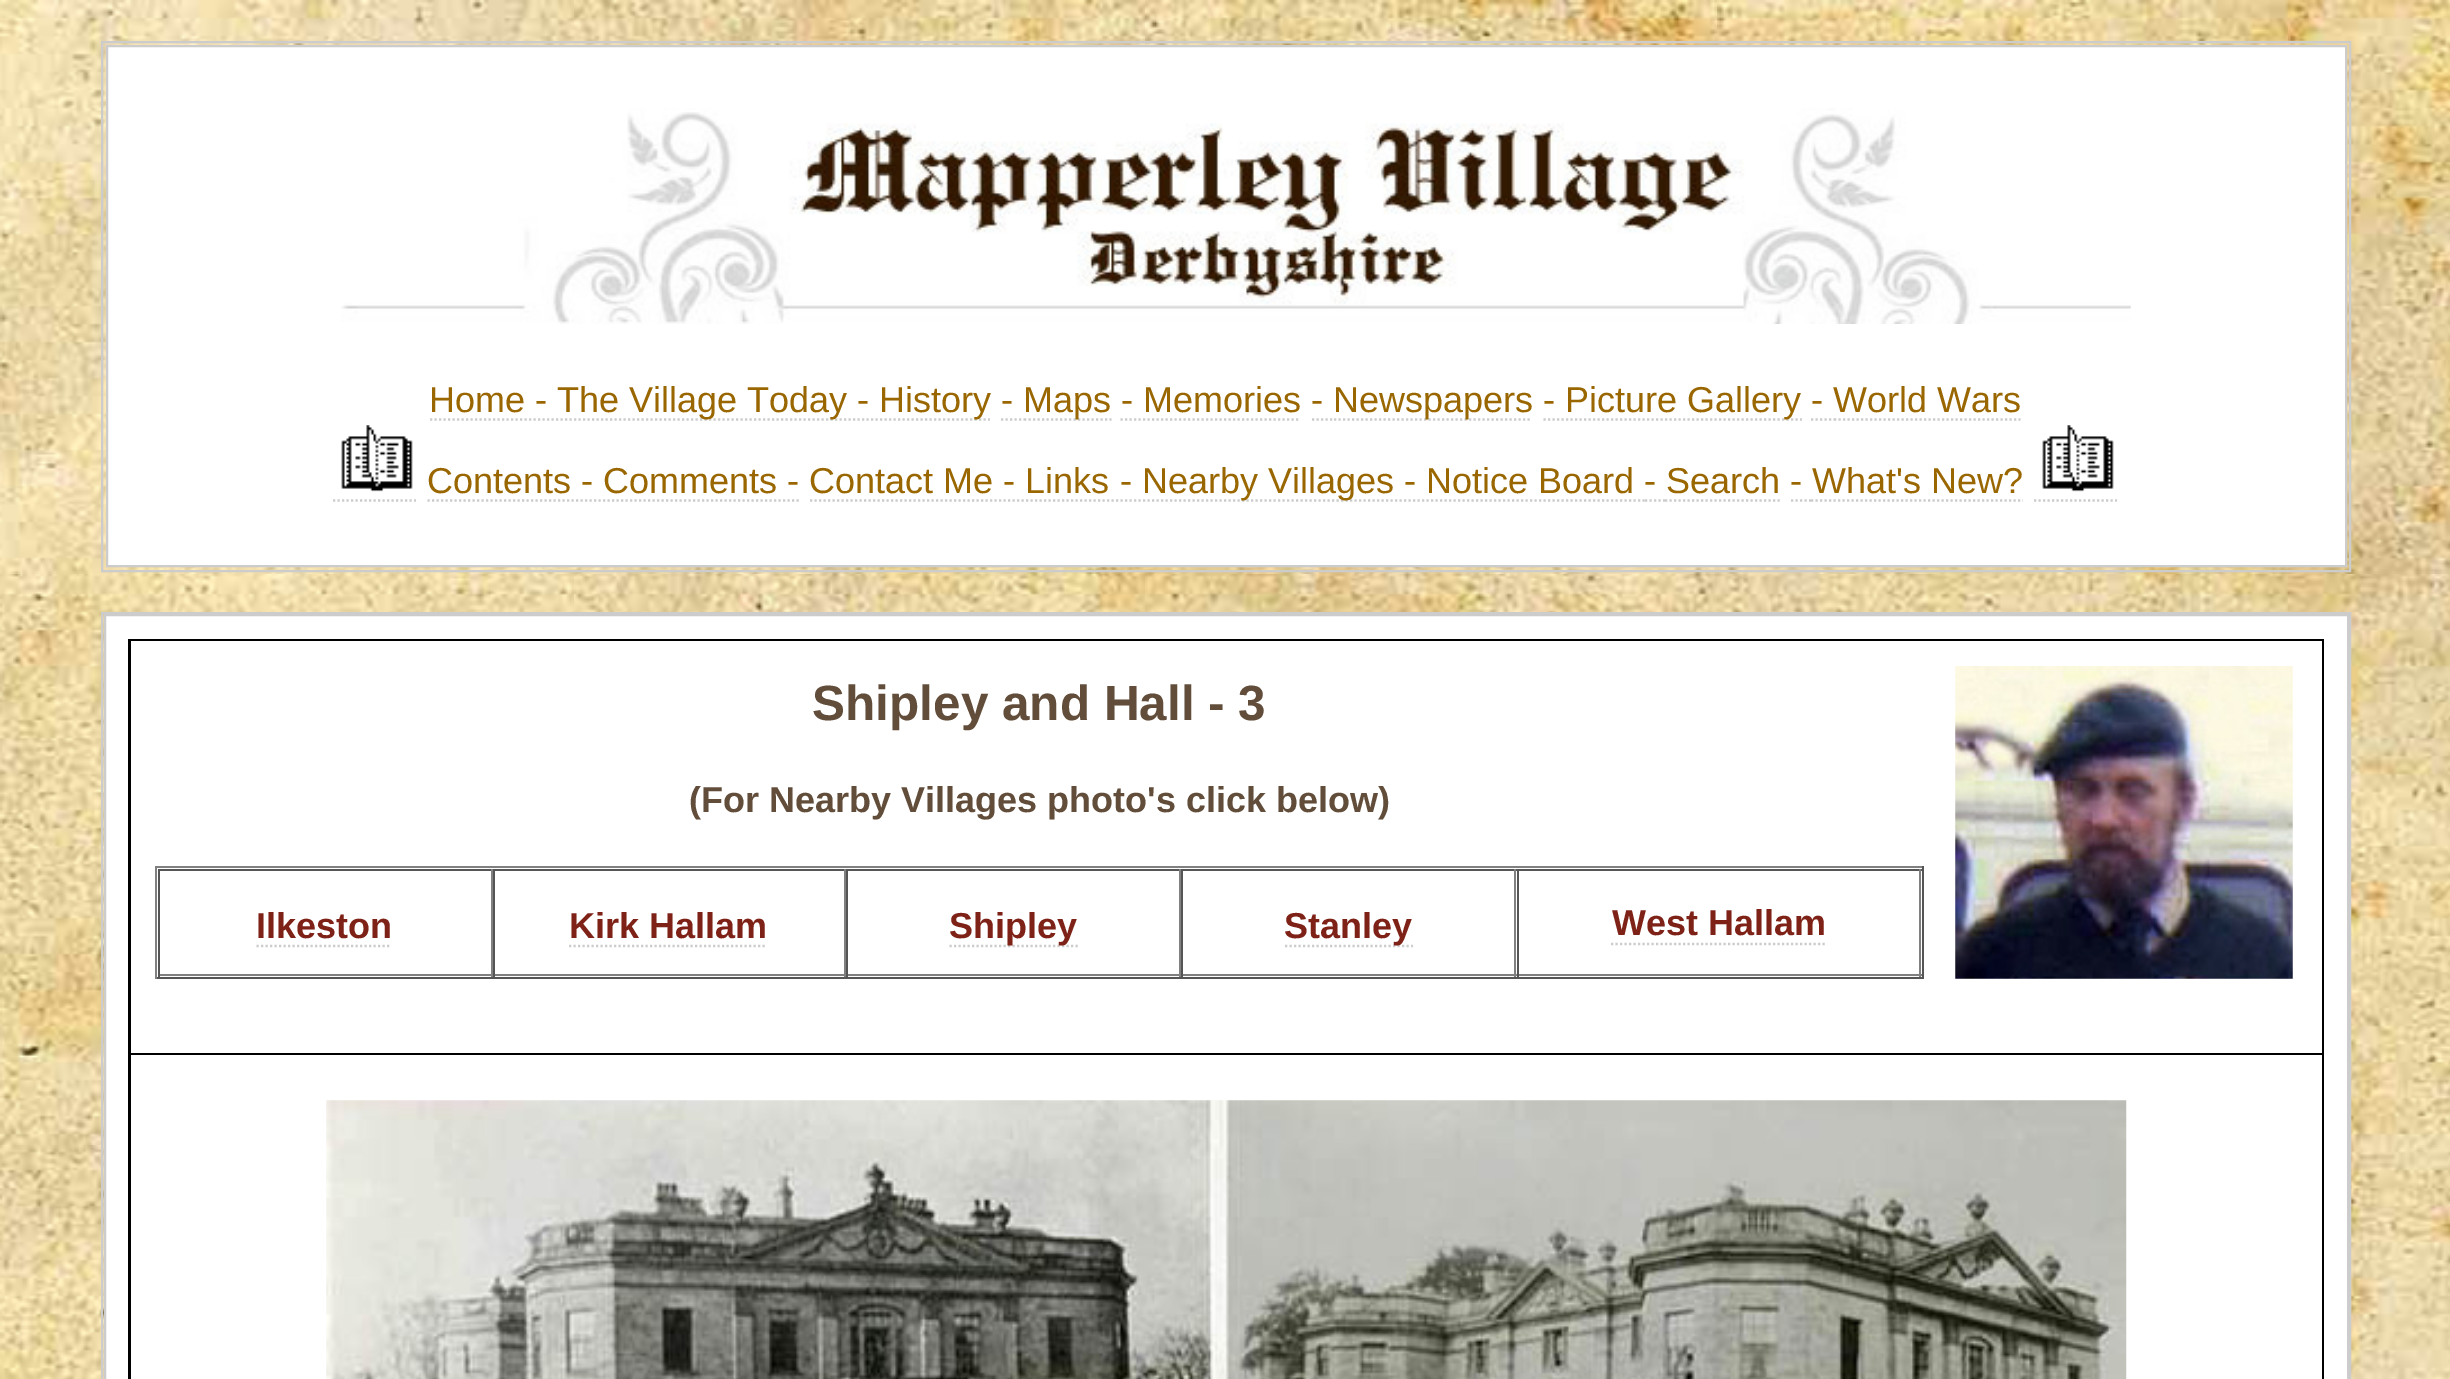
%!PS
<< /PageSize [2450 1379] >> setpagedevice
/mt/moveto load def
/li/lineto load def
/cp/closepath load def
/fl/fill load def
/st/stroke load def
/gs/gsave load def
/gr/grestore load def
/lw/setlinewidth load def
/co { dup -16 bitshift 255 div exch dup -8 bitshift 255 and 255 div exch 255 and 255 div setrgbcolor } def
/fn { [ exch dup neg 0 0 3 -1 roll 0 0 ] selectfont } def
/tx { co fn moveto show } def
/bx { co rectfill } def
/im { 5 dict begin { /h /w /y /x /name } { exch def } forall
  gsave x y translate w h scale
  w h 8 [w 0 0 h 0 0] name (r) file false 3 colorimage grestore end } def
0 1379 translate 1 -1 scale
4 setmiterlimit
0 0 2450 1379 16#FFFFFF bx
(media/1.raw) 0 0 2450 1379 im
16#CCCCCC co
2 lw
102 42 2248 529 rectstroke
16#FFFFFF co
107 46 mt 2346 46 li 2346 566 li 107 566 li cp gs fl gr
16#CCCCCC co
st
(media/2.raw) 341 108 1790 216 im
2.2 lw
[2.25 2.25] 0 setdash
430 419.5 mt 556 419.5 li st
556 419.5 mt 880 419.5 li st
880 419.5 mt 990 419.5 li st
1024 419.5 mt 1111.5 419.5 li st
1334 419.5 mt 1532 419.5 li st
1566 419.5 mt 1802 419.5 li st
(media/3.raw) 341 425 72 67 im
427.5 500.5 mt 580.5 500.5 li st
1120.5 500.5 mt 1404 500.5 li st
(media/4.raw) 2042 425 72 67 im
333 500.5 mt 416 500.5 li st
580.5 500.5 mt 603 500.5 li st
603 500.5 mt 799 500.5 li st
810 500.5 mt 1003.5 500.5 li st
1003.5 500.5 mt 1026 500.5 li st
1026 500.5 mt 1120.5 500.5 li st
2034 500.5 mt 2117 500.5 li st
2 lw
[] 0 setdash
102 613 2248 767 rectstroke
16#FFFFFF co
105 615 mt 2348 615 li 2348 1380 li 105 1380 li cp gs fl gr
16#CCCCCC co
st
128 639 2196 740 16#000000 bx
131 641 2191 412 16#FFFFFF bx
155 866 1769 2 16#808080 bx
1922 866 2 113 16#555555 bx
155 977 1769 2 16#555555 bx
155 866 2 113 16#808080 bx
158 869 1764 2 16#555555 bx
491 869 2 108 16#808080 bx
158 974 335 2 16#808080 bx
158 869 2 108 16#555555 bx
16#CCCCCC co
2.2 lw
[2.25 2.25] 0 setdash
256.5 946 mt 391.5 946 li st
844 869 2 108 16#808080 bx
493 974 353 2 16#808080 bx
493 869 2 108 16#555555 bx
16#CCCCCC co
569 946 mt 767 946 li st
1179 869 2 108 16#808080 bx
846 974 335 2 16#808080 bx
846 869 2 108 16#555555 bx
16#CCCCCC co
949.5 946 mt 1078 946 li st
1514 869 2 108 16#808080 bx
1181 974 336 2 16#808080 bx
1181 869 2 108 16#555555 bx
16#CCCCCC co
1285 946 mt 1413 946 li st
1919 869 2 108 16#808080 bx
1517 974 405 2 16#808080 bx
1517 869 2 108 16#555555 bx
16#CCCCCC co
1611 944 mt 1827 944 li st
(media/5.raw) 1955 666 338 313 im
131 1055 2191 324 16#FFFFFF bx
(media/6.raw) 326 1100 1801 279 im
(Home -) 429 412 /LiberationSans-Regular 36 16#996600 tx
(The Village Today -) 557 412 /LiberationSans-Regular 36 16#996600 tx
(History -) 879 412 /LiberationSans-Regular 36 16#996600 tx
16#CCCCCC co
1001 419.5 mt 1024 419.5 li st
(Maps - Memories -) 1023 412 /LiberationSans-Regular 36 16#996600 tx
(Newspapers -) 1333 412 /LiberationSans-Regular 36 16#996600 tx
(Picture Gallery - World Wars) 1565 412 /LiberationSans-Regular 36 16#996600 tx
16#CCCCCC co
1120.5 419.5 mt 1143 419.5 li st
1143 419.5 mt 1300.5 419.5 li st
1312 419.5 mt 1334 419.5 li st
1543.5 419.5 mt 1566 419.5 li st
1811 419.5 mt 1834 419.5 li st
1834 419.5 mt 2020.5 419.5 li st
(Contents - Comments - Contact Me - Links) 427 493 /LiberationSans-Regular 36 16#996600 tx
(- Nearby Villages - Notice Board - Search - What's New?) 1120 493 /LiberationSans-Regular 36 16#996600 tx
16#CCCCCC co
1404 500.5 mt 1645 500.5 li st
1645 500.5 mt 1665 500.5 li st
1665 500.5 mt 1780 500.5 li st
1791 500.5 mt 1811 500.5 li st
1811 500.5 mt 2023 500.5 li st
(Shipley and Hall - 3) 812 720 /LiberationSans-Bold 49.5 16#614D3A tx
(\(For Nearby Villages photo's click below\)) 689 812 /LiberationSans-Bold 36 16#614D3A tx
(Ilkeston) 256 938 /LiberationSans-Bold 36 16#7E2217 tx
(Kirk Hallam) 569 938 /LiberationSans-Bold 36 16#7E2217 tx
(Shipley) 949 938 /LiberationSans-Bold 36 16#7E2217 tx
(Stanley) 1284 938 /LiberationSans-Bold 36 16#7E2217 tx
(West Hallam) 1612 935 /LiberationSans-Bold 36 16#7E2217 tx
showpage
